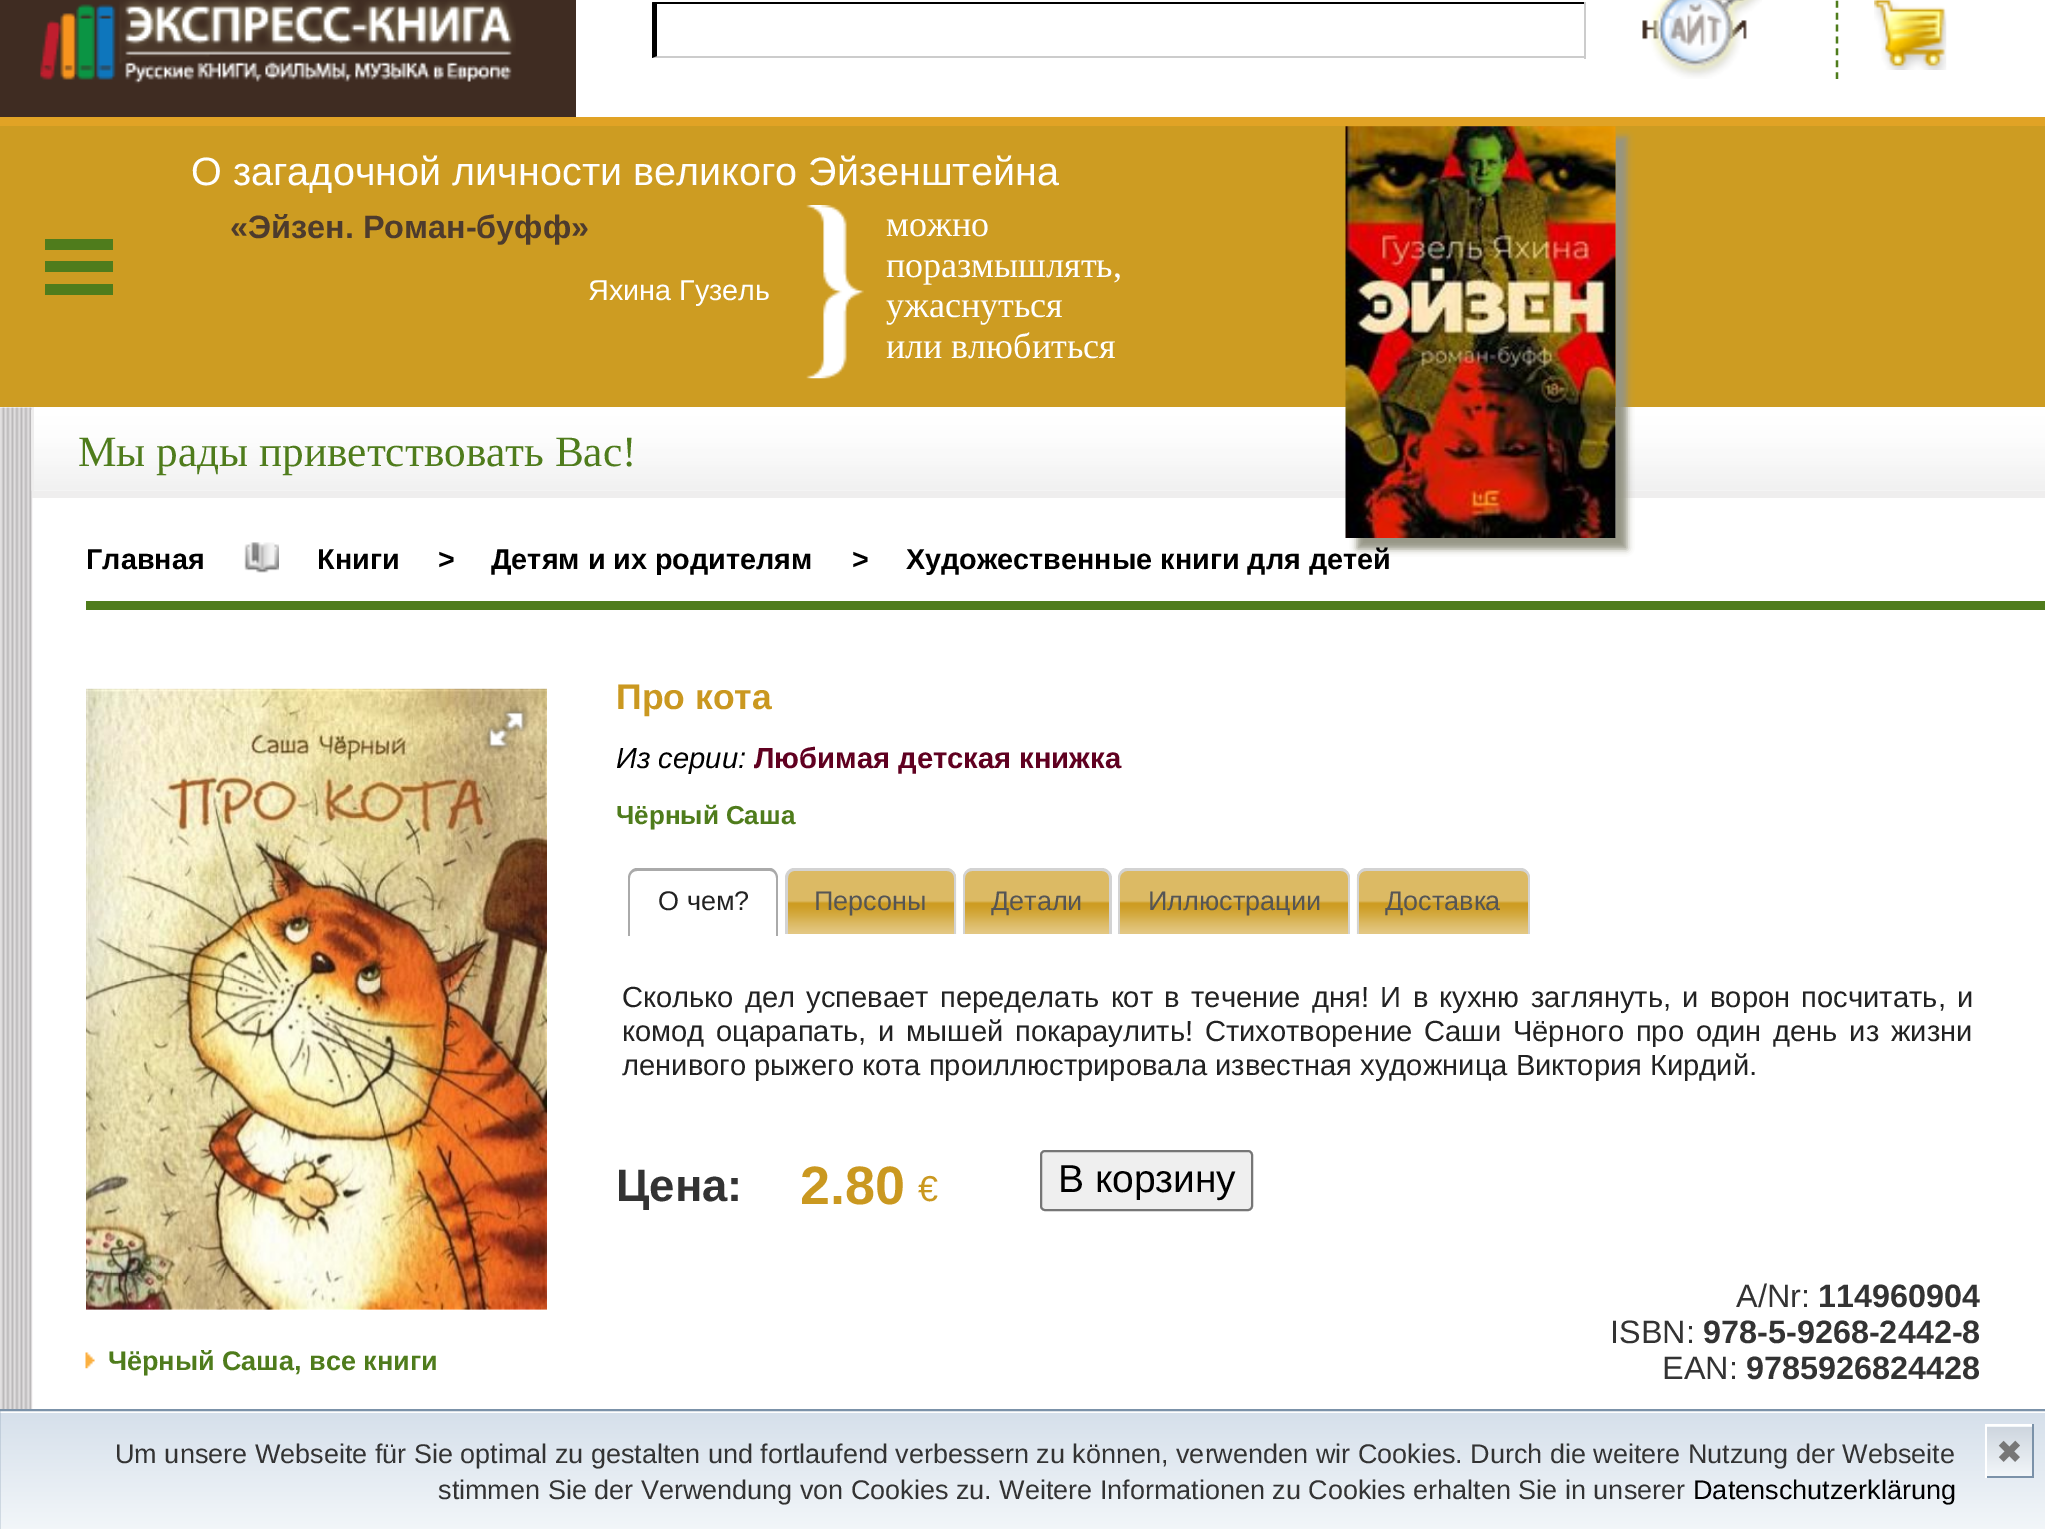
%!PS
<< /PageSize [2045 1529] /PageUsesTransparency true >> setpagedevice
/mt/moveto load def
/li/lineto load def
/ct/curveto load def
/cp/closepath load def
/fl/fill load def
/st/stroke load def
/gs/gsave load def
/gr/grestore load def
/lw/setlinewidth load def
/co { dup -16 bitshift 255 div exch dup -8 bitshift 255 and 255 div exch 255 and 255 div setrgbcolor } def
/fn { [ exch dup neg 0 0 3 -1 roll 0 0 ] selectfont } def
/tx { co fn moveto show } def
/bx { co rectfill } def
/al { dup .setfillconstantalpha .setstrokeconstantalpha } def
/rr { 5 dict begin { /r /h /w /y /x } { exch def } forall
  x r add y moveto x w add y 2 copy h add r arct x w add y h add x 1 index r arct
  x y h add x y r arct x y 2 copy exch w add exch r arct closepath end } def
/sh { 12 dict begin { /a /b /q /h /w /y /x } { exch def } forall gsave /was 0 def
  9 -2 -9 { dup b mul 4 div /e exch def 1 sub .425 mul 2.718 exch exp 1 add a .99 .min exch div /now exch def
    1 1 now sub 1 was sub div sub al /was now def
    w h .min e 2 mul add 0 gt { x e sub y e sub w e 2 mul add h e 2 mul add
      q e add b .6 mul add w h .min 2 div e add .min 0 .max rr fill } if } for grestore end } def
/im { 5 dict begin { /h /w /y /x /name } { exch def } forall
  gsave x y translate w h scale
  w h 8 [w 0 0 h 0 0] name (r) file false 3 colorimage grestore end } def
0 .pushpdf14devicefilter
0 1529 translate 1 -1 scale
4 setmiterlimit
0 0 2045 1529 16#FFFFFF bx
0 0 576 117 16#3F2C22 bx
(media/1.raw) 40 0 476 84 im
653 2 933 2 16#000000 bx
1584 2 2 57 16#CCCCCC bx
1586 58 mt 652 58 li 657 56 li 1584 56 li cp fl
16#000000 co
652 58 mt 652 2 li 657 4 li 657 56 li cp fl
(media/2.raw) 1642 0 120 79 im
16#4F7C1C co
2.2 lw
[6.75 5.15] 0 setdash
1837 -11 mt 1837 79 li st
(media/3.raw) 1874 0 73 70 im
0 126 2045 281 16#CD9C22 bx
0 117 2045 9 16#E1A325 bx
45 261 68 11 16#4F7C1C bx
45 239 68 11 16#4F7C1C bx
45 284 68 11 16#4F7C1C bx
(media/6.raw) 0 407 33 1002 im
(media/7.raw) 31 409 2014 82 im
32 491 2013 7 16#EFEEEE bx
16#949484 co
1357 137 270 412 0 3.5 1 sh
(media/4.raw) 1345 126 271 412 im
(media/5.raw) 806 205 58 174 im
32 407 2 90 16#EFEEEE bx
86 601 1959 9 16#4F7C1C bx
(media/8.raw) 244 542 35 31 im
(media/9.raw) 86 688 461 622 im
(media/10.raw) 481 704 51 50 im
(media/11.raw) 85 1352 10 17 im
16#AAAAAA co
637 868 mt 770 868 li 774 868 778 873 778 878 ct 778 936 li 628 936 li 628 878 li 628 873 632 868 637 868 ct cp 637 871 mt 770 871 li 773 871 776 874 776 878 ct 776 936 li 630 936 li 630 878 li 630 874 633 871 637 871 ct cp eofill
(media/12.raw) 785 868 172 66 im
16#D3D3D3 co
794 868 mt 947 868 li 952 868 956 873 956 878 ct 956 934 li 785 934 li 785 878 li 785 873 789 868 794 868 ct cp 794 871 mt 947 871 li 951 871 954 874 954 878 ct 954 934 li 788 934 li 788 878 li 788 874 791 871 794 871 ct cp eofill
(media/13.raw) 963 868 149 66 im
972 868 mt 1102 868 li 1107 868 1112 873 1112 878 ct 1112 934 li 963 934 li 963 878 li 963 873 967 868 972 868 ct cp 972 871 mt 1102 871 li 1106 871 1109 874 1109 878 ct 1109 934 li 965 934 li 965 878 li 965 874 968 871 972 871 ct cp eofill
(media/14.raw) 1118 868 232 66 im
1127 868 mt 1341 868 li 1346 868 1350 873 1350 878 ct 1350 934 li 1118 934 li 1118 878 li 1118 873 1122 868 1127 868 ct cp 1127 871 mt 1341 871 li 1345 871 1348 874 1348 878 ct 1348 934 li 1120 934 li 1120 878 li 1120 874 1124 871 1127 871 ct cp eofill
(media/15.raw) 1356 868 174 66 im
1366 868 mt 1521 868 li 1526 868 1530 873 1530 878 ct 1530 934 li 1357 934 li 1357 878 li 1357 873 1361 868 1366 868 ct cp 1366 871 mt 1521 871 li 1525 871 1528 874 1528 878 ct 1528 934 li 1359 934 li 1359 878 li 1359 874 1362 871 1366 871 ct cp eofill
16#EFEFEF co
1041 1151 211 59 4 rr gs fl gr
16#767676 co
2 lw
[] 0 setdash
st
gs 0 1413 mt 2045 1413 li 2045 1529 li 0 1529 li cp clip newpath
<< /ShadingType 2 /ColorSpace /DeviceRGB /Coords [1023 1413 1023 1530] /Extend [true true] /Function << /FunctionType 2 /Domain [0 1] /C0 [.839 .878 .922] /C1 [.949 .965 .976] /N 1 >> >> shfill gr
16#7B92A9 co
-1 1410 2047 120 rectstroke
gs 1985 1426 mt 2034 1426 li 2034 1427 li 1985 1427 li cp clip newpath
<< /ShadingType 2 /ColorSpace /DeviceRGB /Coords [1987 1377 1987 1427] /Extend [true true] /Function << /FunctionType 2 /Domain [0 1] /C0 [.808 .839 .875] /C1 [.949 .965 .976] /N 1 >> >> shfill gr
gs 1987 1427 mt 2032 1427 li 2032 1476 li 1987 1476 li cp clip newpath
<< /ShadingType 2 /ColorSpace /DeviceRGB /Coords [1987 1427 1987 1476] /Extend [true true] /Function << /FunctionType 2 /Domain [0 1] /C0 [.808 .839 .875] /C1 [.949 .965 .976] /N 1 >> >> shfill gr
1985 1424 49 2 16#FFFFFF bx
2032 1424 2 54 16#7B92A9 bx
1985 1476 49 2 16#7B92A9 bx
1985 1424 2 54 16#FFFFFF bx
(О загадочной личности великого Эйзенштейна) 191 185 /LiberationSans-Regular 39.6 16#FFFFFF tx
(«Эйзен. Роман-буфф») 230 238 /LiberationSans-Bold 32.4 16#4D3B2D tx
(Яхина Гузель) 588 300 /LiberationSans-Regular 28.75 16#FFFFFF tx
(можно) 886 236 /LiberationSerif-Regular 36 16#FFFFFF tx
(поразмышлять,) 886 277 /LiberationSerif-Regular 36 16#FFFFFF tx
(ужаснуться) 886 317 /LiberationSerif-Regular 36 16#FFFFFF tx
(или влюбиться) 886 358 /LiberationSerif-Regular 36 16#FFFFFF tx
(Мы рады приветствовать Вас!) 78 466 /LiberationSerif-Regular 43.25 16#4F7C1C tx
(Главная) 86 569 /LiberationSans-Bold 28.75 16#000000 tx
(Книги) 317 569 /LiberationSans-Bold 28.75 16#000000 tx
(>) 438 569 /LiberationSans-Bold 28.75 16#000000 tx
(Детям и их родителям) 491 569 /LiberationSans-Bold 28.75 16#000000 tx
(>) 852 569 /LiberationSans-Bold 28.75 16#000000 tx
(Художественные книги для детей) 906 569 /LiberationSans-Bold 28.75 16#000000 tx
(Чёрный Саша, все книги) 108 1370 /LiberationSans-Bold 27 16#4F7C1C tx
(Про кота) 616 709 /LiberationSans-Bold 35.5 16#CA9820 tx
(Из серии:) 616 768 /LiberationSans-Italic 29.15 16#000000 tx
(Любимая детская книжка) 754 768 /LiberationSans-Bold 29.15 16#600020 tx
(Чёрный Саша) 616 824 /LiberationSans-Bold 26 16#4F7C1C tx
(О чем?) 658 910 /LiberationSans-Regular 27 16#222222 tx
(Персоны) 814 910 /LiberationSans-Regular 27 16#555555 tx
(Детали) 991 910 /LiberationSans-Regular 27 16#555555 tx
(Иллюстрации) 1148 910 /LiberationSans-Regular 27 16#555555 tx
(Доставка) 1385 910 /LiberationSans-Regular 27 16#555555 tx
/LiberationSans-Regular 29.15 fn
16#222222 co
622 1007 mt 3.25 0 32 (Сколько дел успевает переделать кот в течение дня! И в кухню заглянуть, и ворон посчитать, и) widthshow
622 1041 mt 3.75 0 32 (комод оцарапать, и мышей покараулить! Стихотворение Саши Чёрного про один день из жизни) widthshow
(ленивого рыжего кота проиллюстрировала известная художница Виктория Кирдий.) 622 1075 /LiberationSans-Regular 29.15 16#222222 tx
(Цена:) 616 1201 /LiberationSans-Bold 45.5 16#333333 tx
(2.80) 800 1204 /LiberationSans-Bold 54 16#CA9820 tx
(€) 918 1201 /LiberationSans-Regular 36 16#CA9820 tx
(В корзину) 1058 1192 /LiberationSans-Regular 39 16#000000 tx
(A/Nr:) 1736 1307 /LiberationSans-Regular 32.4 16#333333 tx
(114960904) 1818 1307 /LiberationSans-Bold 32.4 16#333333 tx
(ISBN:) 1610 1343 /LiberationSans-Regular 32.4 16#333333 tx
(978-5-9268-2442-8) 1703 1343 /LiberationSans-Bold 32.4 16#333333 tx
(EAN:) 1662 1379 /LiberationSans-Regular 32.4 16#333333 tx
(9785926824428) 1746 1379 /LiberationSans-Bold 32.4 16#333333 tx
(Um unsere Webseite für Sie optimal zu gestalten und fortlaufend verbessern zu können, verwenden wir Cookies. Durch die weitere Nutzung der Webseite) 115 1463 /LiberationSans-Regular 27 16#333333 tx
(✖) 1996 1463 /DejaVuSans-Regular 32 16#777777 tx
(stimmen Sie der Verwendung von Cookies zu. Weitere Informationen zu Cookies erhalten Sie in unserer) 438 1499 /LiberationSans-Regular 27 16#333333 tx
(Datenschutzerklärung) 1693 1499 /LiberationSans-Regular 27 16#000000 tx
.poppdf14devicefilter showpage
